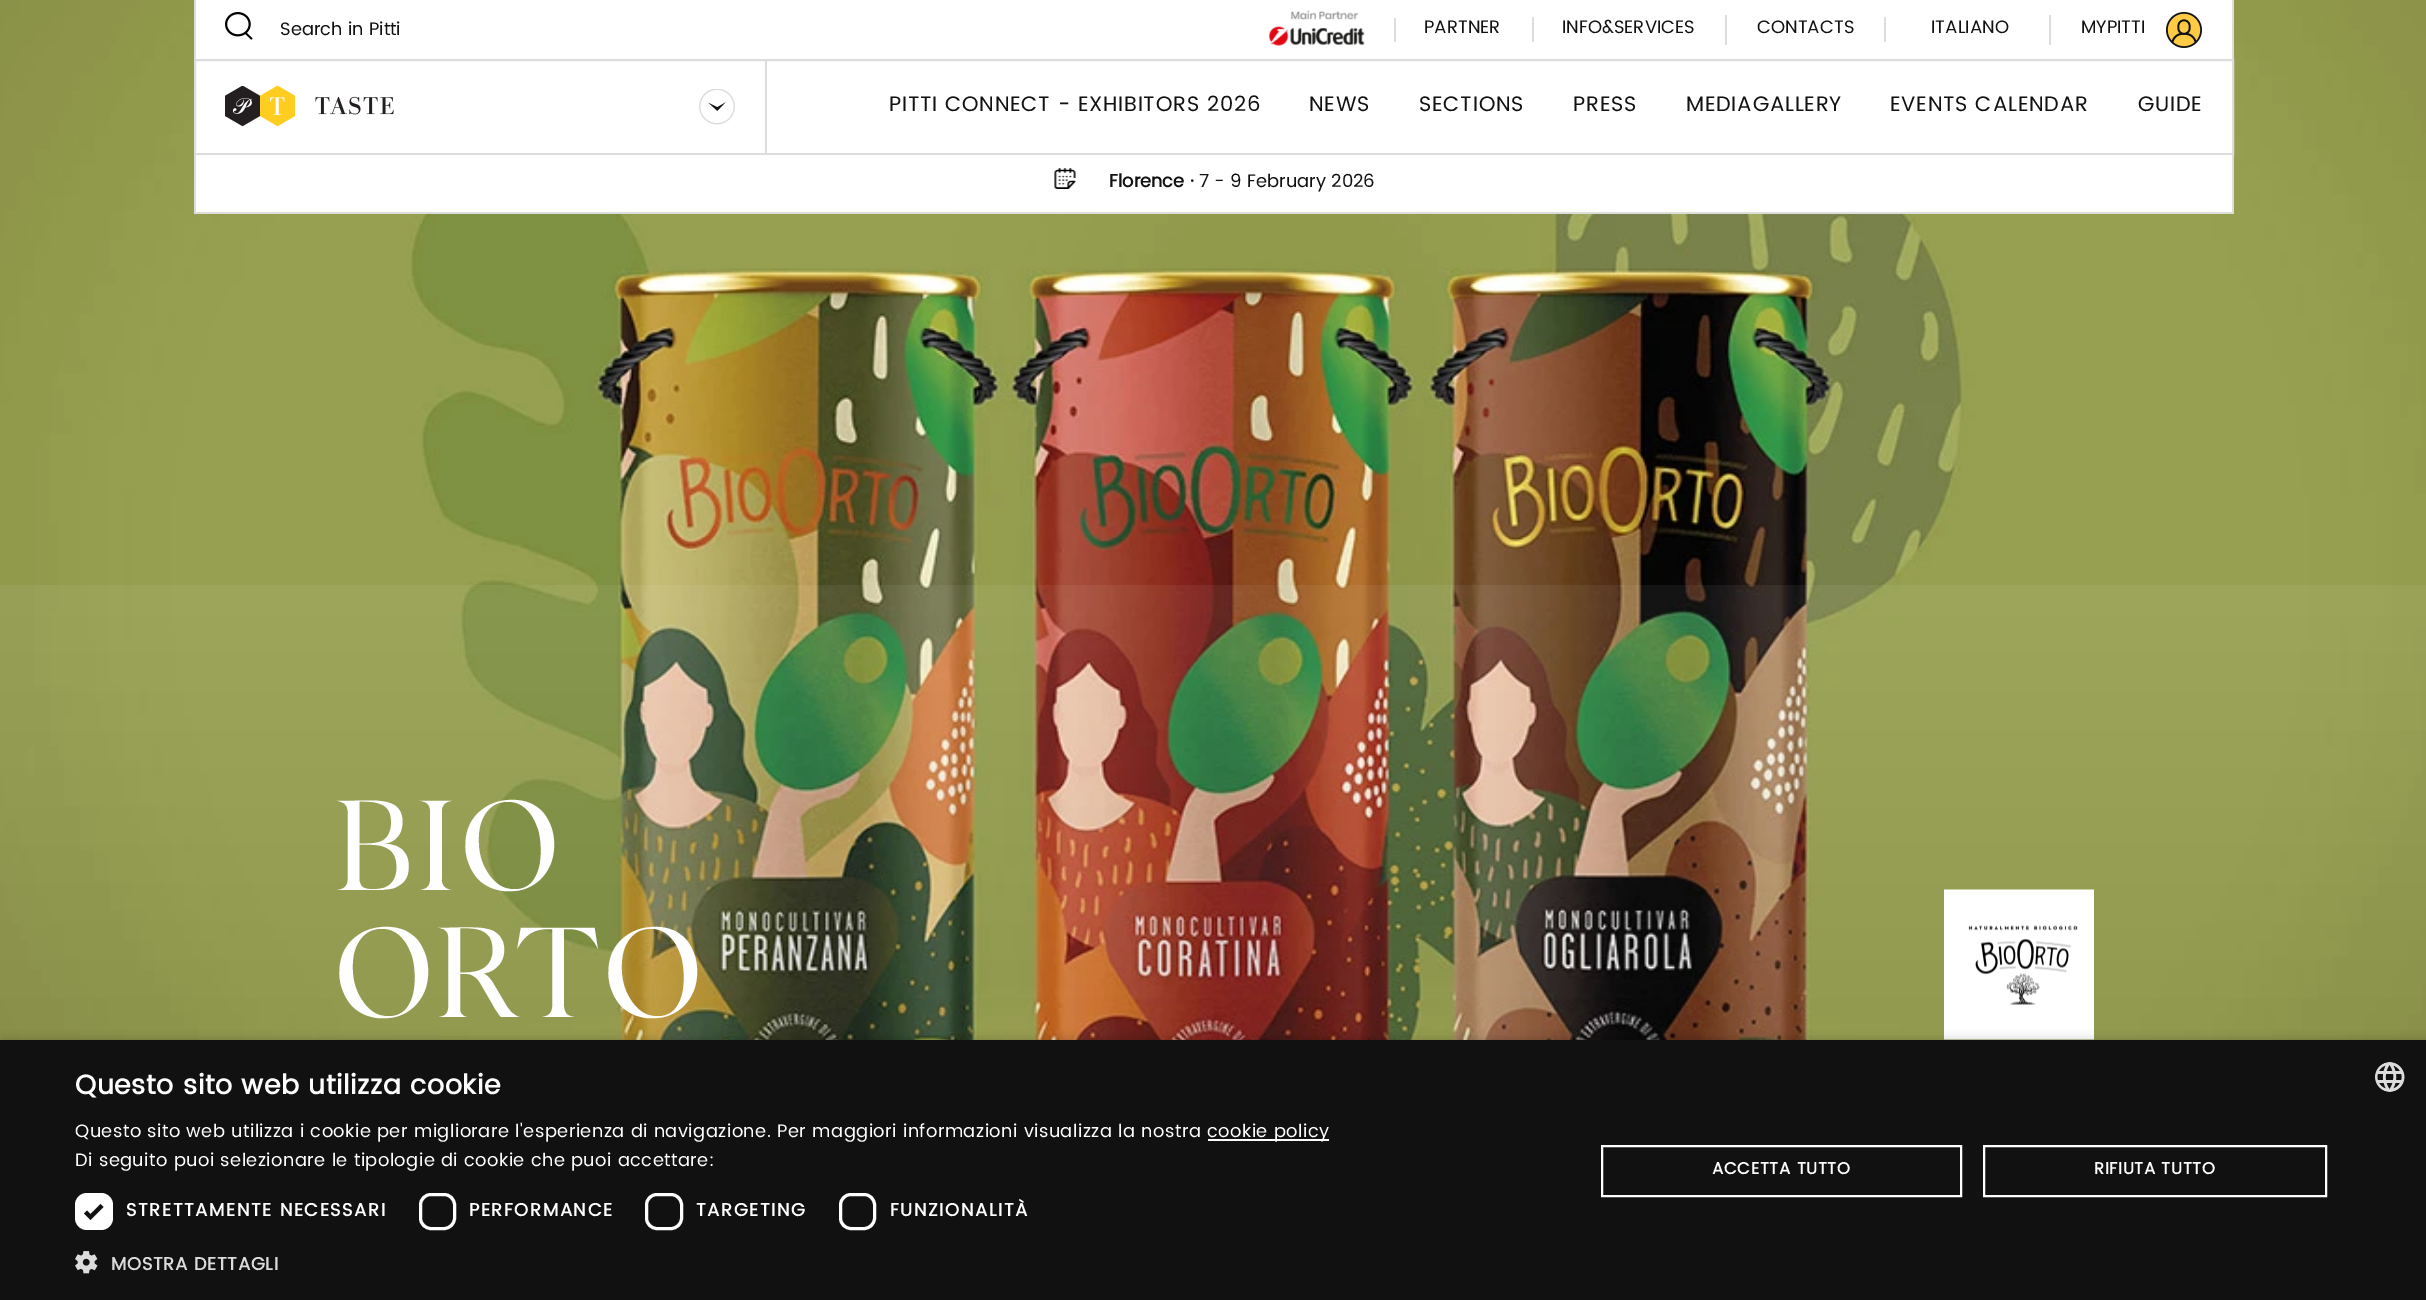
%!PS
<< /PageSize [2426 1300] /PageUsesTransparency true >> setpagedevice
/mt/moveto load def
/li/lineto load def
/cp/closepath load def
/fl/fill load def
/st/stroke load def
/gs/gsave load def
/gr/grestore load def
/lw/setlinewidth load def
/co { dup -16 bitshift 255 div exch dup -8 bitshift 255 and 255 div exch 255 and 255 div setrgbcolor } def
/fn { [ exch dup neg 0 0 3 -1 roll 0 0 ] selectfont } def
/tx { co fn moveto show } def
/bx { co rectfill } def
/al { dup .setfillconstantalpha .setstrokeconstantalpha } def
/rr { 5 dict begin { /r /h /w /y /x } { exch def } forall
  x r add y moveto x w add y 2 copy h add r arct x w add y h add x 1 index r arct
  x y h add x y r arct x y 2 copy exch w add exch r arct closepath end } def
/sh { 12 dict begin { /a /b /q /h /w /y /x } { exch def } forall gsave /was 0 def
  9 -2 -9 { dup b mul 4 div /e exch def 1 sub .425 mul 2.718 exch exp 1 add a .99 .min exch div /now exch def
    1 1 now sub 1 was sub div sub al /was now def
    w h .min e 2 mul add 0 gt { x e sub y e sub w e 2 mul add h e 2 mul add
      q e add b .6 mul add w h .min 2 div e add .min 0 .max rr fill } if } for grestore end } def
/im { 5 dict begin { /h /w /y /x /name } { exch def } forall
  gsave x y translate w h scale
  w h 8 [w 0 0 h 0 0] name (r) file false 3 colorimage grestore end } def
0 .pushpdf14devicefilter
0 1300 translate 1 -1 scale
4 setmiterlimit
0 0 2426 1300 16#FFFFFF bx
(media/7.raw) 0 0 2426 1040 im
196 0 2036 59 16#FFFFFF bx
2232 0 2 59 16#DDDDDD bx
194 0 2 59 16#DDDDDD bx
(media/1.raw) 225 12 28 28 im
(media/2.raw) 1269 10 96 36 im
1394 18 2 24 16#DDDDDD bx
1532 17 2 25 16#DDDDDD bx
1725 15 2 30 16#DDDDDD bx
1884 17 2 25 16#DDDDDD bx
2049 15 2 30 16#DDDDDD bx
(media/3.raw) 2166 12 36 36 im
16#FFFFFF co
195 60 mt 2233 60 li 2233 154 li 195 154 li cp gs fl gr
16#DDDDDD co
2 lw
st
765 60 2 93 16#DDDDDD bx
(media/4.raw) 225 86 169 41 im
(media/5.raw) 699 89 36 36 im
196 155 2036 57 16#FFFFFF bx
2232 155 2 58 16#DDDDDD bx
194 212 2040 2 16#DDDDDD bx
194 155 2 58 16#DDDDDD bx
(media/6.raw) 1054 168 22 21 im
(media/8.raw) 1944 889 150 151 im
16#000000 co
2 1043 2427 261 0 6 .35 sh
0 1040 2426 260 16#111111 bx
1208 1139 121 2 16#FFFFFF bx
75 1193 38 37 12 rr fl
16#111111 co
3.9 lw
85.5 1212 mt 90.5 1217 li 102 1205.5 li st
16#FFFFFF co
3 lw
420.5 1194.5 34 34 10.5 rr st
646.5 1194.5 35 34 10.5 rr st
840.5 1194.5 34 34 10.5 rr st
(media/9.raw) 75 1251 23 23 im
2 lw
1602 1146 359 50 rectstroke
1984 1146 342 50 rectstroke
(media/10.raw) 2375 1062 30 30 im
(Search in Pitti) 280 35 /Poppins-Regular 18 16#111111 tx
(PARTNER) 1424 33 /Poppins-Regular 18 16#111111 tx
(INFO&SERVICES) 1562 33 /Poppins-Regular 18 16#111111 tx
(CONTACTS) 1757 33 /Poppins-Regular 18 16#111111 tx
(ITALIANO) 1931 33 /Poppins-Regular 18 16#111111 tx
(MYPITTI) 2081 33 /Poppins-Regular 18 16#111111 tx
/Poppins-Regular 21 fn
889 111 mt .75 0 (PITTI CONNECT - EXHIBITORS 2026) ashow
1309 111 mt .75 0 (NEWS) ashow
1419 111 mt .75 0 (SECTIONS) ashow
1573 111 mt .75 0 (PRESS) ashow
1686 111 mt .75 0 (MEDIAGALLERY) ashow
1890 111 mt .75 0 (EVENTS CALENDAR) ashow
2138 111 mt .75 0 (GUIDE) ashow
(Florence ·) 1109 187 /Poppins-Bold 18 16#111111 tx
(7 - 9 February 2026) 1199 187 /Poppins-Regular 18 16#111111 tx
/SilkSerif-Regular 127.5 fn
16#FEFEFE co
333 890 mt 1 0 (BIO) ashow
333 1017 mt 1 0 (ORTO) ashow
/Poppins-Bold 27 fn
75 1094 mt .6 0 (Questo sito web utilizza cookie) ashow
/Poppins-Regular 18 fn
75 1137 mt .45 0 (Questo sito web utilizza i cookie per migliorare l'esperienza di navigazione. Per maggiori informazioni visualizza la nostra) ashow
1207 1137 mt .45 0 (cookie policy) ashow
75 1166 mt .45 0 (Di seguito puoi selezionare le tipologie di cookie che puoi accettare:) ashow
/Poppins-Bold 18 fn
126 1216 mt 1.5 0 (STRETTAMENTE NECESSARI) ashow
469 1216 mt 1.5 0 (PERFORMANCE) ashow
696 1216 mt 1.5 0 (TARGETING) ashow
890 1216 mt 1.5 0 (FUNZIONALITÀ) ashow
16#DBDBDB co
111 1270 mt .6 0 (MOSTRA DETTAGLI) ashow
/Poppins-Bold 16.5 fn
16#FEFEFE co
1712 1174 mt .6 0 (ACCETTA TUTTO) ashow
2094 1174 mt .6 0 (RIFIUTA TUTTO) ashow
.poppdf14devicefilter showpage
